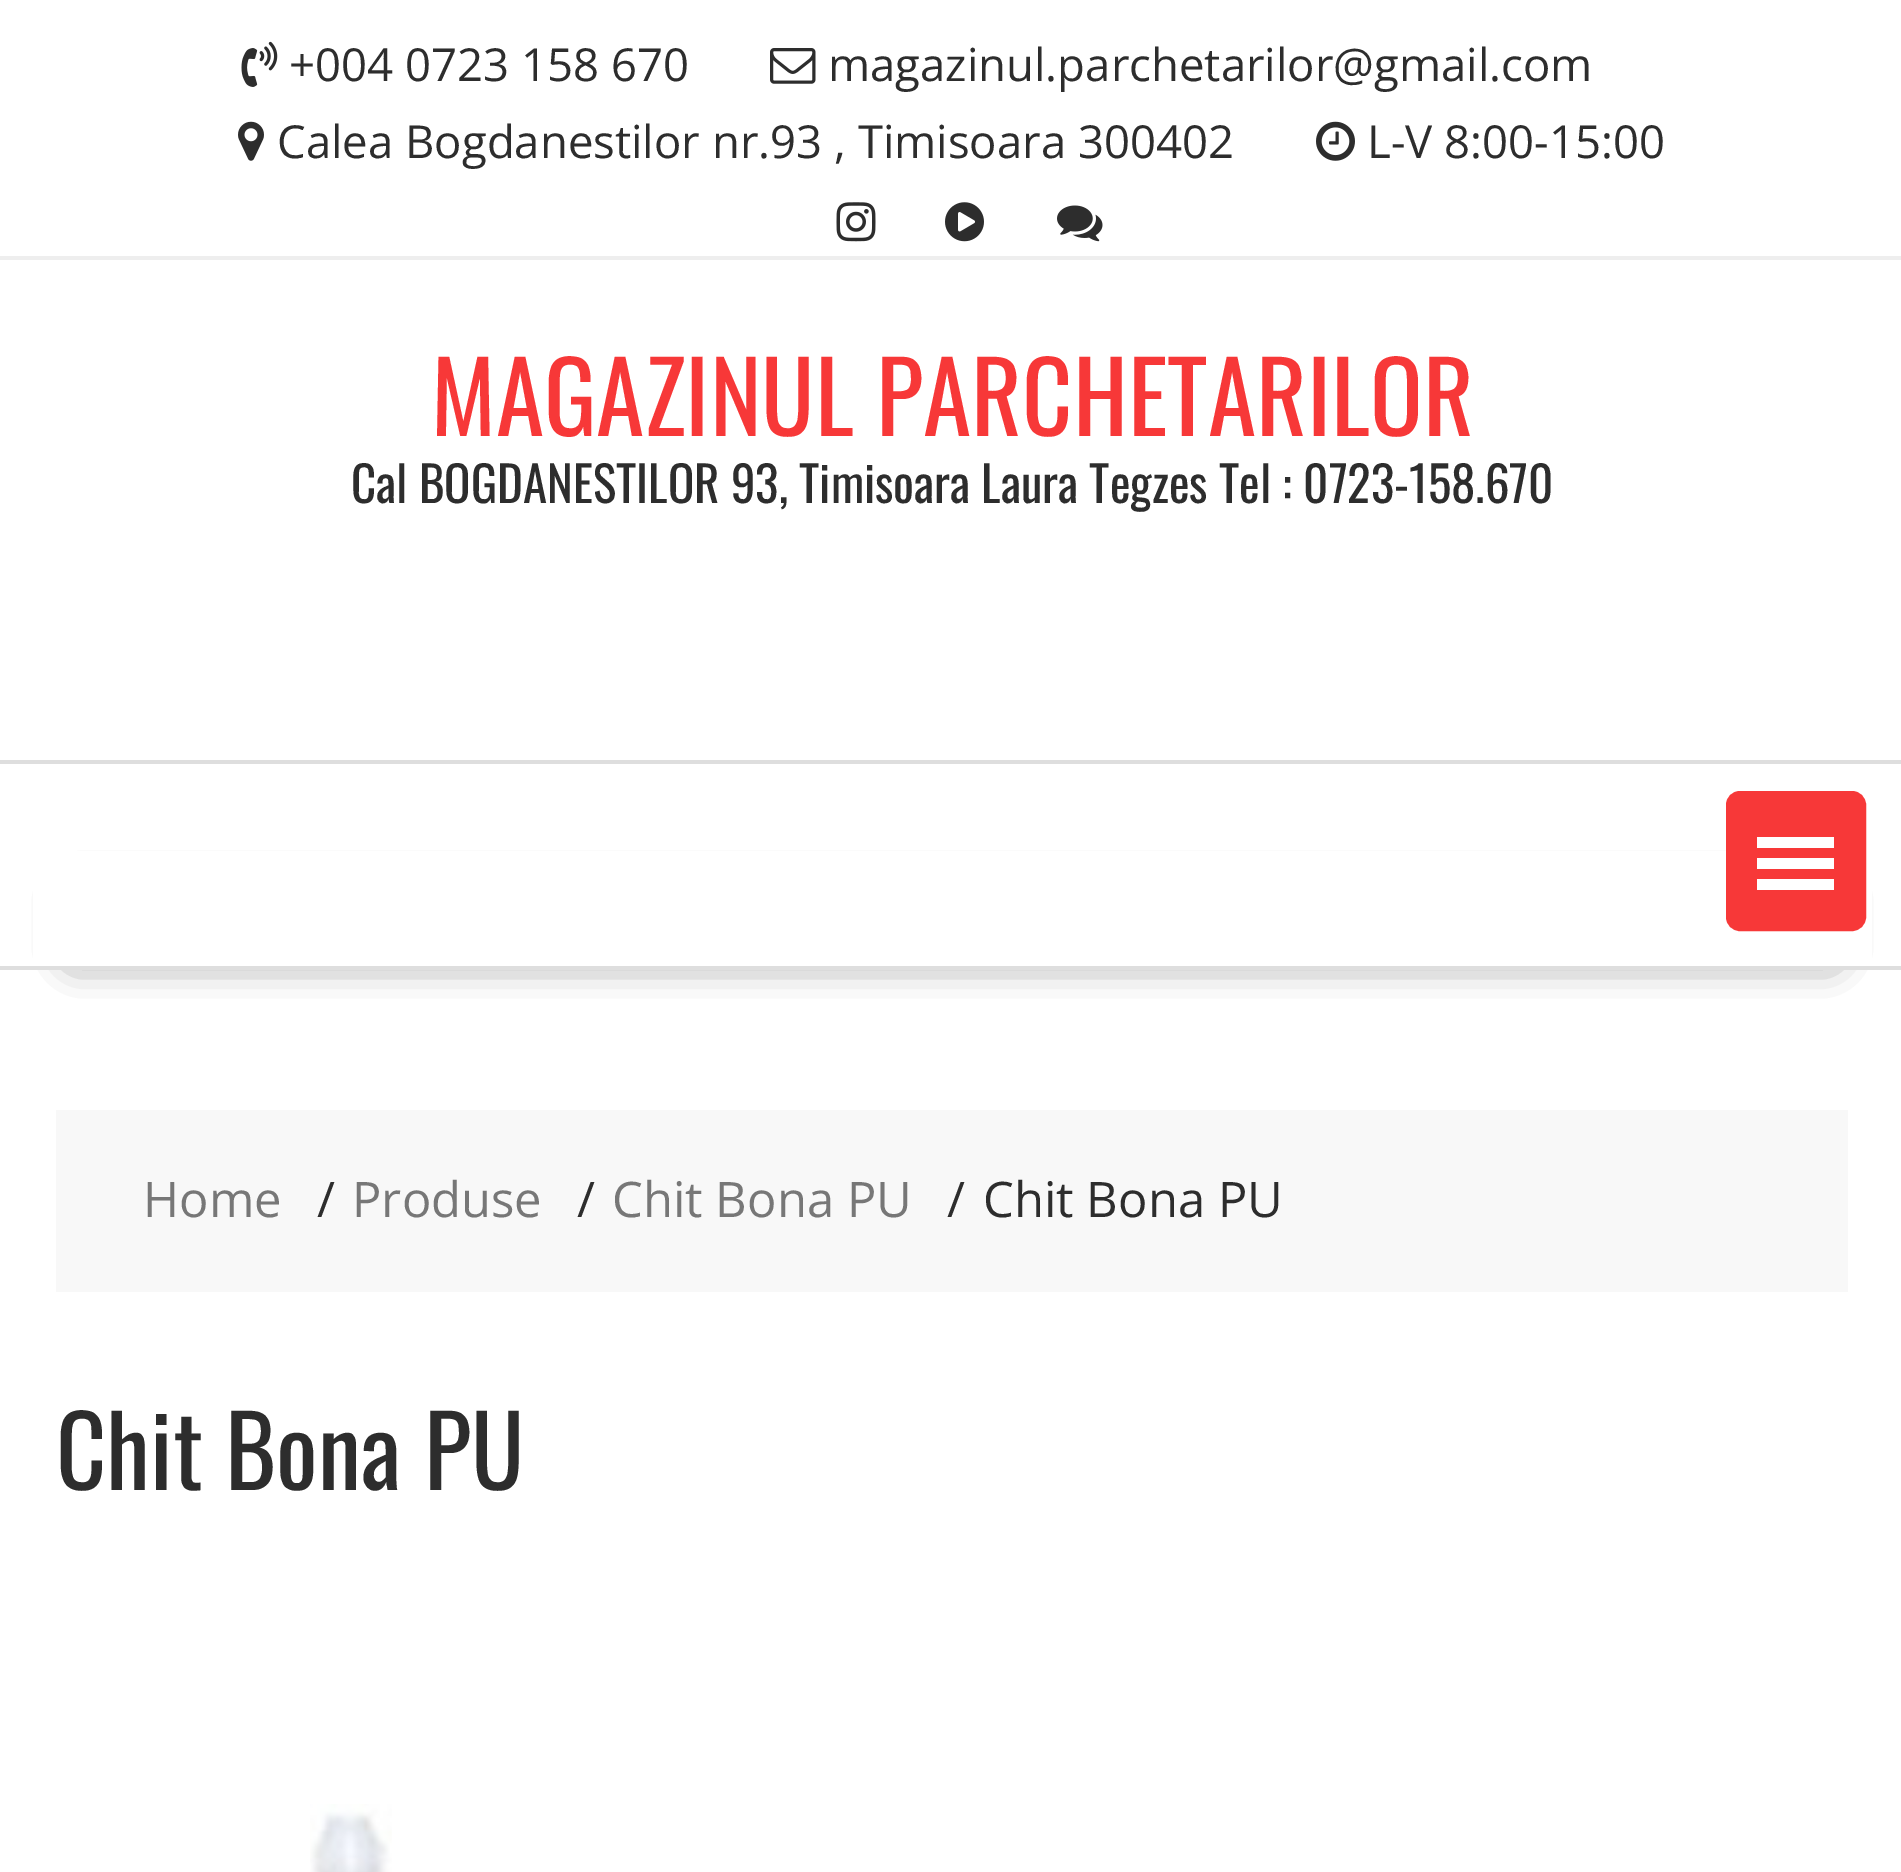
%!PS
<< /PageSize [1901 1872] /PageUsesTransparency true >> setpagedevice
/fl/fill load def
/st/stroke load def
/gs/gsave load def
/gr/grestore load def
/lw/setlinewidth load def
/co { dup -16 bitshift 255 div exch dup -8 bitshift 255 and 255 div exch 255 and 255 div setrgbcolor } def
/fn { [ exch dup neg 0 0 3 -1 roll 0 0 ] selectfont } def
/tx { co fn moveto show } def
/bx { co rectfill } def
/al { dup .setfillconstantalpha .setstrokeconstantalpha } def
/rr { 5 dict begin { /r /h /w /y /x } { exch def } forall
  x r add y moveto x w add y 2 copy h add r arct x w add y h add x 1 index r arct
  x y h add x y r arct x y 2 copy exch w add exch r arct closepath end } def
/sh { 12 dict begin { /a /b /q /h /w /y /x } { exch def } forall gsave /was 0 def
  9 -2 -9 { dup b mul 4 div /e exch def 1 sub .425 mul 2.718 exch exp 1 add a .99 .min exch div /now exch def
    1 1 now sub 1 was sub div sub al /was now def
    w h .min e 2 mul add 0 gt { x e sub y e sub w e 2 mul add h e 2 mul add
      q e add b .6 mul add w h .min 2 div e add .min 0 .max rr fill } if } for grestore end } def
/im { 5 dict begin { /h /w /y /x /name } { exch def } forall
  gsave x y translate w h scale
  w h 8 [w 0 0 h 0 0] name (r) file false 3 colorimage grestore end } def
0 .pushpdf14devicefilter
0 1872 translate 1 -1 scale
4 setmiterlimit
0 0 1901 1872 16#FFFFFF bx
0 256 1901 4 16#EEEEEE bx
(media/1.raw) 241 41 37 46 im
(media/2.raw) 770 48 46 36 im
(media/3.raw) 238 121 26 40 im
(media/4.raw) 1316 121 39 40 im
(media/5.raw) 836 202 40 40 im
(media/6.raw) 945 202 39 40 im
(media/7.raw) 1057 205 46 37 im
16#000000 co
74 893 1757 63 0 19 .75 sh
33 851 1839 115 16#FFFFFF bx
0 760 1901 4 16#DEDEDE bx
0 966 1901 4 16#DEDEDE bx
16#F73838 co
1728 793 136 136 12 rr gs fl gr
4 lw
st
1757 879 77 11 16#FFFFFF bx
1757 858 77 11 16#FFFFFF bx
1757 837 77 11 16#FFFFFF bx
56 1110 1792 182 16#F8F8F8 bx
(media/8.raw) 310 1804 82 68 im
(+004 0723 158 670) 289 81 /OpenSans-Regular 45.5 16#2D2D2D tx
(magazinul.parchetarilor@gmail.com) 828 81 /OpenSans-Regular 45.5 16#2D2D2D tx
(Calea Bogdanestilor nr.93 , Timisoara 300402) 277 158 /OpenSans-Regular 45.5 16#2D2D2D tx
(L-V 8:00-15:00) 1367 158 /OpenSans-Regular 45.5 16#2D2D2D tx
(MAGAZINUL PARCHETARILOR) 431 436 /Oswald-Regular 98 16#F73838 tx
(Cal BOGDANESTILOR 93, Timisoara Laura Tegzes Tel : 0723-158.670) 351 503 /Oswald-Regular 49 16#2D2D2D tx
(Home) 143 1217 /OpenSans-Regular 49 16#777777 tx
(/) 317 1217 /OpenSans-Regular 49 16#2D2D2D tx
(Produse) 352 1217 /OpenSans-Regular 49 16#777777 tx
(/) 577 1217 /OpenSans-Regular 49 16#2D2D2D tx
(Chit Bona PU) 612 1217 /OpenSans-Regular 49 16#777777 tx
(/) 947 1217 /OpenSans-Regular 49 16#2D2D2D tx
(Chit Bona PU) 983 1217 /OpenSans-Regular 49 16#2D2D2D tx
(Chit Bona PU) 56 1490 /Oswald-Regular 98 16#2D2D2D tx
.poppdf14devicefilter showpage
